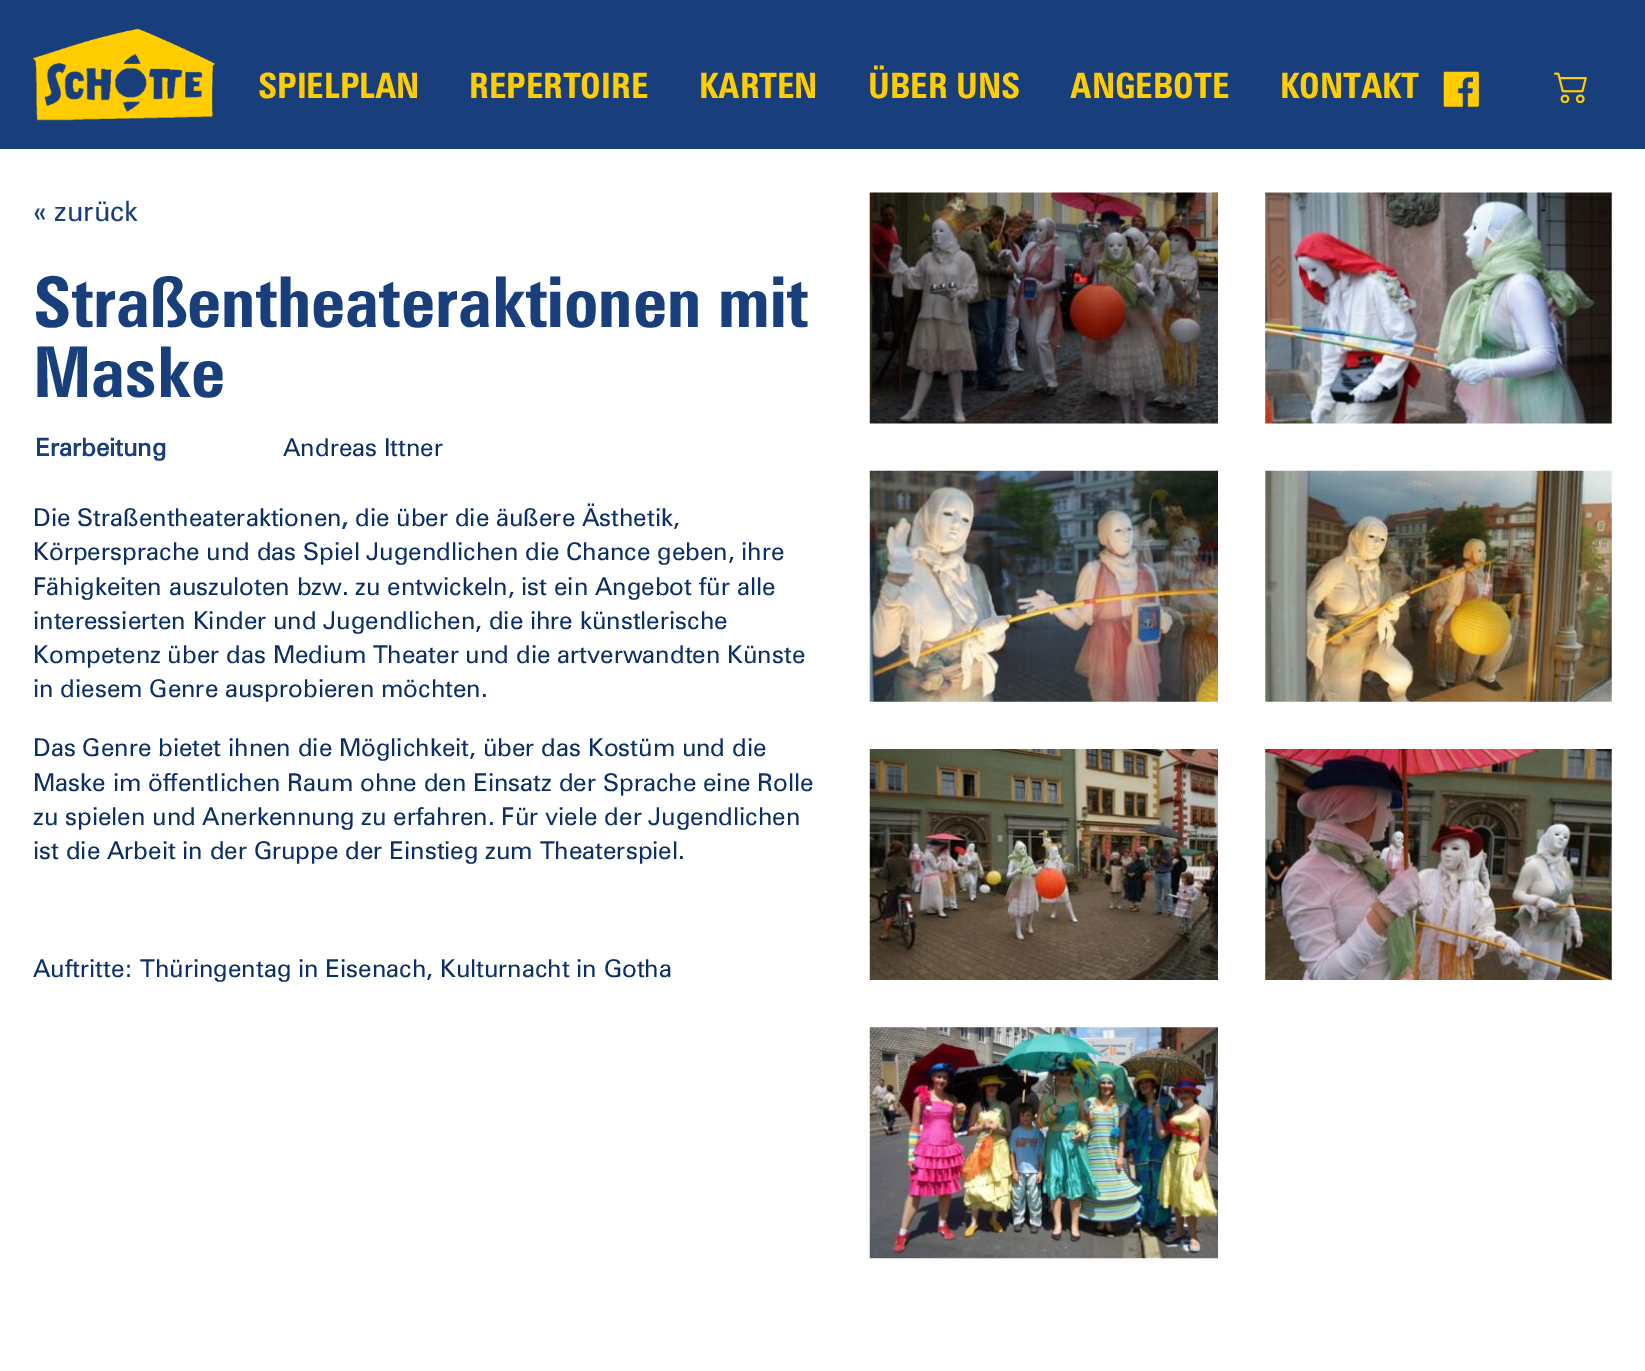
%!PS
<< /PageSize [1645 1371] >> setpagedevice
/co { dup -16 bitshift 255 div exch dup -8 bitshift 255 and 255 div exch 255 and 255 div setrgbcolor } def
/fn { [ exch dup neg 0 0 3 -1 roll 0 0 ] selectfont } def
/tx { co fn moveto show } def
/bx { co rectfill } def
/im { 5 dict begin { /h /w /y /x /name } { exch def } forall
  gsave x y translate w h scale
  w h 8 [w 0 0 h 0 0] name (r) file false 3 colorimage grestore end } def
0 1371 translate 1 -1 scale
4 setmiterlimit
0 0 1645 1371 16#FFFFFF bx
0 0 1645 149 16#183E7B bx
(media/1.raw) 33 28 182 93 im
(media/2.raw) 1443 71 36 36 im
(media/3.raw) 1554 72 33 31 im
(media/4.raw) 869 192 349 232 im
(media/5.raw) 1265 192 347 232 im
(media/6.raw) 869 470 349 232 im
(media/7.raw) 1265 470 347 232 im
(media/8.raw) 869 749 349 231 im
(media/9.raw) 1265 749 347 231 im
(media/10.raw) 869 1027 349 232 im
(SPIELPLAN) 258 98 /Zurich-Bold 35 16#FFCD00 tx
(REPERTOIRE) 469 98 /Zurich-Bold 35 16#FFCD00 tx
(KARTEN) 699 98 /Zurich-Bold 35 16#FFCD00 tx
(ÜBER UNS) 868 98 /Zurich-Bold 35 16#FFCD00 tx
(ANGEBOTE) 1070 98 /Zurich-Bold 35 16#FFCD00 tx
(KONTAKT) 1280 98 /Zurich-Bold 35 16#FFCD00 tx
(« zurück) 33 221 /Zurich-Regular 28 16#183E7B tx
(Straßentheateraktionen mit) 33 327 /Zurich-Bold 70 16#183E7B tx
(Maske) 33 397 /Zurich-Bold 70 16#183E7B tx
(Erarbeitung) 35 456 /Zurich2-Bold 24.5 16#183E7B tx
(Andreas Ittner) 283 456 /Zurich-Regular 24.5 16#0B2E65 tx
(Die Straßentheateraktionen) 33 526 /Zurich-Regular 24.5 16#0B2E65 tx
(,) 341 526 /Zurich2-Bold 24.5 16#183E7B tx
(die über die äußere Ästhetik,) 355 526 /Zurich-Regular 24.5 16#0B2E65 tx
(Körpersprache und das Spiel Jugendlichen die Chance geben, ihre) 33 560 /Zurich-Regular 24.5 16#0B2E65 tx
(Fähigkeiten auszuloten bzw. zu entwickeln, ist ein Angebot für alle) 33 595 /Zurich-Regular 24.5 16#0B2E65 tx
(interessierten Kinder und Jugendlichen, die ihre künstlerische) 33 629 /Zurich-Regular 24.5 16#0B2E65 tx
(Kompetenz über das Medium Theater und die artverwandten Künste) 33 663 /Zurich-Regular 24.5 16#0B2E65 tx
(in diesem Genre ausprobieren möchten.) 33 697 /Zurich-Regular 24.5 16#0B2E65 tx
(Das Genre bietet ihnen die Möglichkeit, über das Kostüm und die) 33 756 /Zurich-Regular 24.5 16#0B2E65 tx
(Maske im öffentlichen Raum ohne den Einsatz der Sprache eine Rolle) 33 791 /Zurich-Regular 24.5 16#0B2E65 tx
(zu spielen und Anerkennung zu erfahren. Für viele der Jugendlichen) 33 825 /Zurich-Regular 24.5 16#0B2E65 tx
(ist die Arbeit in der Gruppe der Einstieg zum Theaterspiel.) 33 859 /Zurich-Regular 24.5 16#0B2E65 tx
(Auftritte: Thüringentag in Eisenach, Kulturnacht in Gotha) 33 977 /Zurich-Regular 24.5 16#0B2E65 tx
showpage
